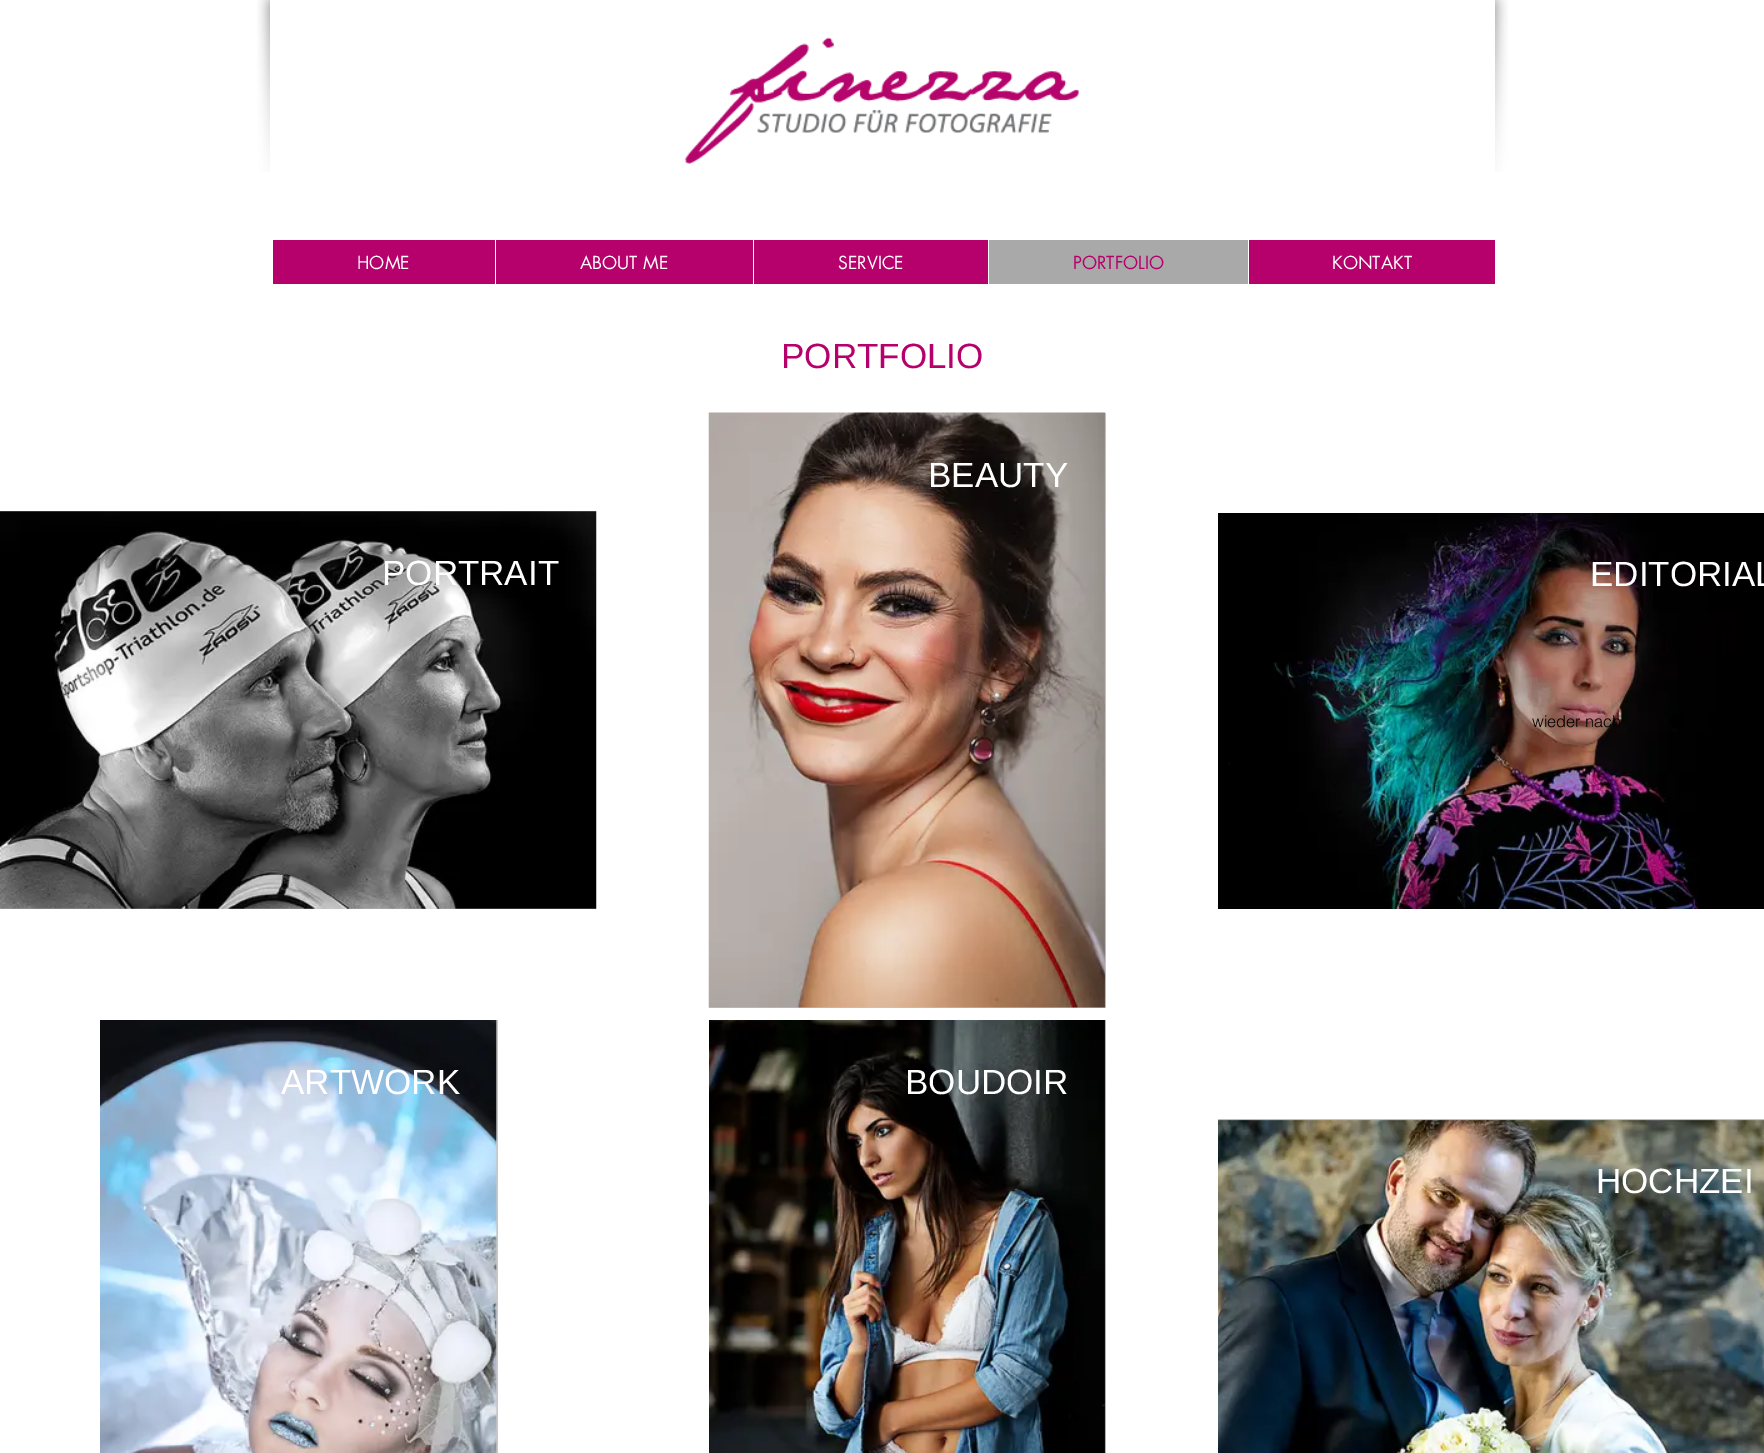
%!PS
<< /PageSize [1764 1453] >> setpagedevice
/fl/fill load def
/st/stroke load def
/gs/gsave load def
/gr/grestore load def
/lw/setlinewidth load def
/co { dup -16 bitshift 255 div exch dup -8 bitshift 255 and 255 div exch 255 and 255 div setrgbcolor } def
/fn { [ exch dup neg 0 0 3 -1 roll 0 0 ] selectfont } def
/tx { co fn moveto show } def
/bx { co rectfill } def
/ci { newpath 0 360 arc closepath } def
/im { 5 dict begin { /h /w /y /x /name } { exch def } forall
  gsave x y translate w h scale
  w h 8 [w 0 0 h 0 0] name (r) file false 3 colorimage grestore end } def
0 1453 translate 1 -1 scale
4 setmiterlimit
0 0 1764 1453 16#FFFFFF bx
(media/1.raw) 257 0 13 172 im
(media/2.raw) 1495 0 13 172 im
(media/3.raw) 685 37 394 127 im
273 240 1222 44 16#B6006C bx
495 240 1 44 16#FFFFFF bx
753 240 1 44 16#FFFFFF bx
989 240 259 44 16#A9A9A9 bx
988 240 1 44 16#FFFFFF bx
1248 240 1 44 16#FFFFFF bx
709 413 397 595 16#C7C7C7 bx
(media/4.raw) 708 412 398 596 im
(media/5.raw) 0 511 597 398 im
(media/6.raw) 1218 513 546 396 im
496 1020 2 433 16#C7C7C7 bx
(media/7.raw) 100 1020 397 433 im
1104 1020 2 433 16#C7C7C7 bx
(media/8.raw) 709 1020 397 433 im
1218 1119 546 2 16#C7C7C7 bx
(media/9.raw) 1218 1119 546 334 im
16#000000 co
1677.5 721 6 ci fl
gs
1670 714 15 15 rectclip
2.5 lw
1677.5 721 6 ci st
gr
(HOME) 357 269 /futura-Regular 17.5 16#FFFFFF tx
(ABOUT ME) 580 269 /futura-Regular 17.5 16#FFFFFF tx
(SERVICE) 838 269 /futura-Regular 17.5 16#FFFFFF tx
(PORTFOLIO) 1073 269 /futura-Regular 17.5 16#B6006C tx
(KONTAKT) 1332 269 /futura-Regular 17.5 16#FFFFFF tx
(PORTFOLIO) 781 368 /LiberationSans-Regular 35 16#B6006C tx
(BEAUTY) 928 487 /LiberationSans-Regular 35 16#FFFFFF tx
(PORTRAIT) 382 585 /LiberationSans-Regular 35 16#FFFFFF tx
(EDITORIAL) 1590 586 /LiberationSans-Regular 35 16#FFFFFF tx
(ARTWORK) 281 1094 /LiberationSans-Regular 35 16#FFFFFF tx
(BOUDOIR) 905 1094 /LiberationSans-Regular 35 16#FFFFFF tx
(HOCHZEI) 1596 1193 /LiberationSans-Regular 35 16#FFFFFF tx
(wieder nach) 1532 727 /helvetica-Light 16.25 16#000000 tx
showpage
